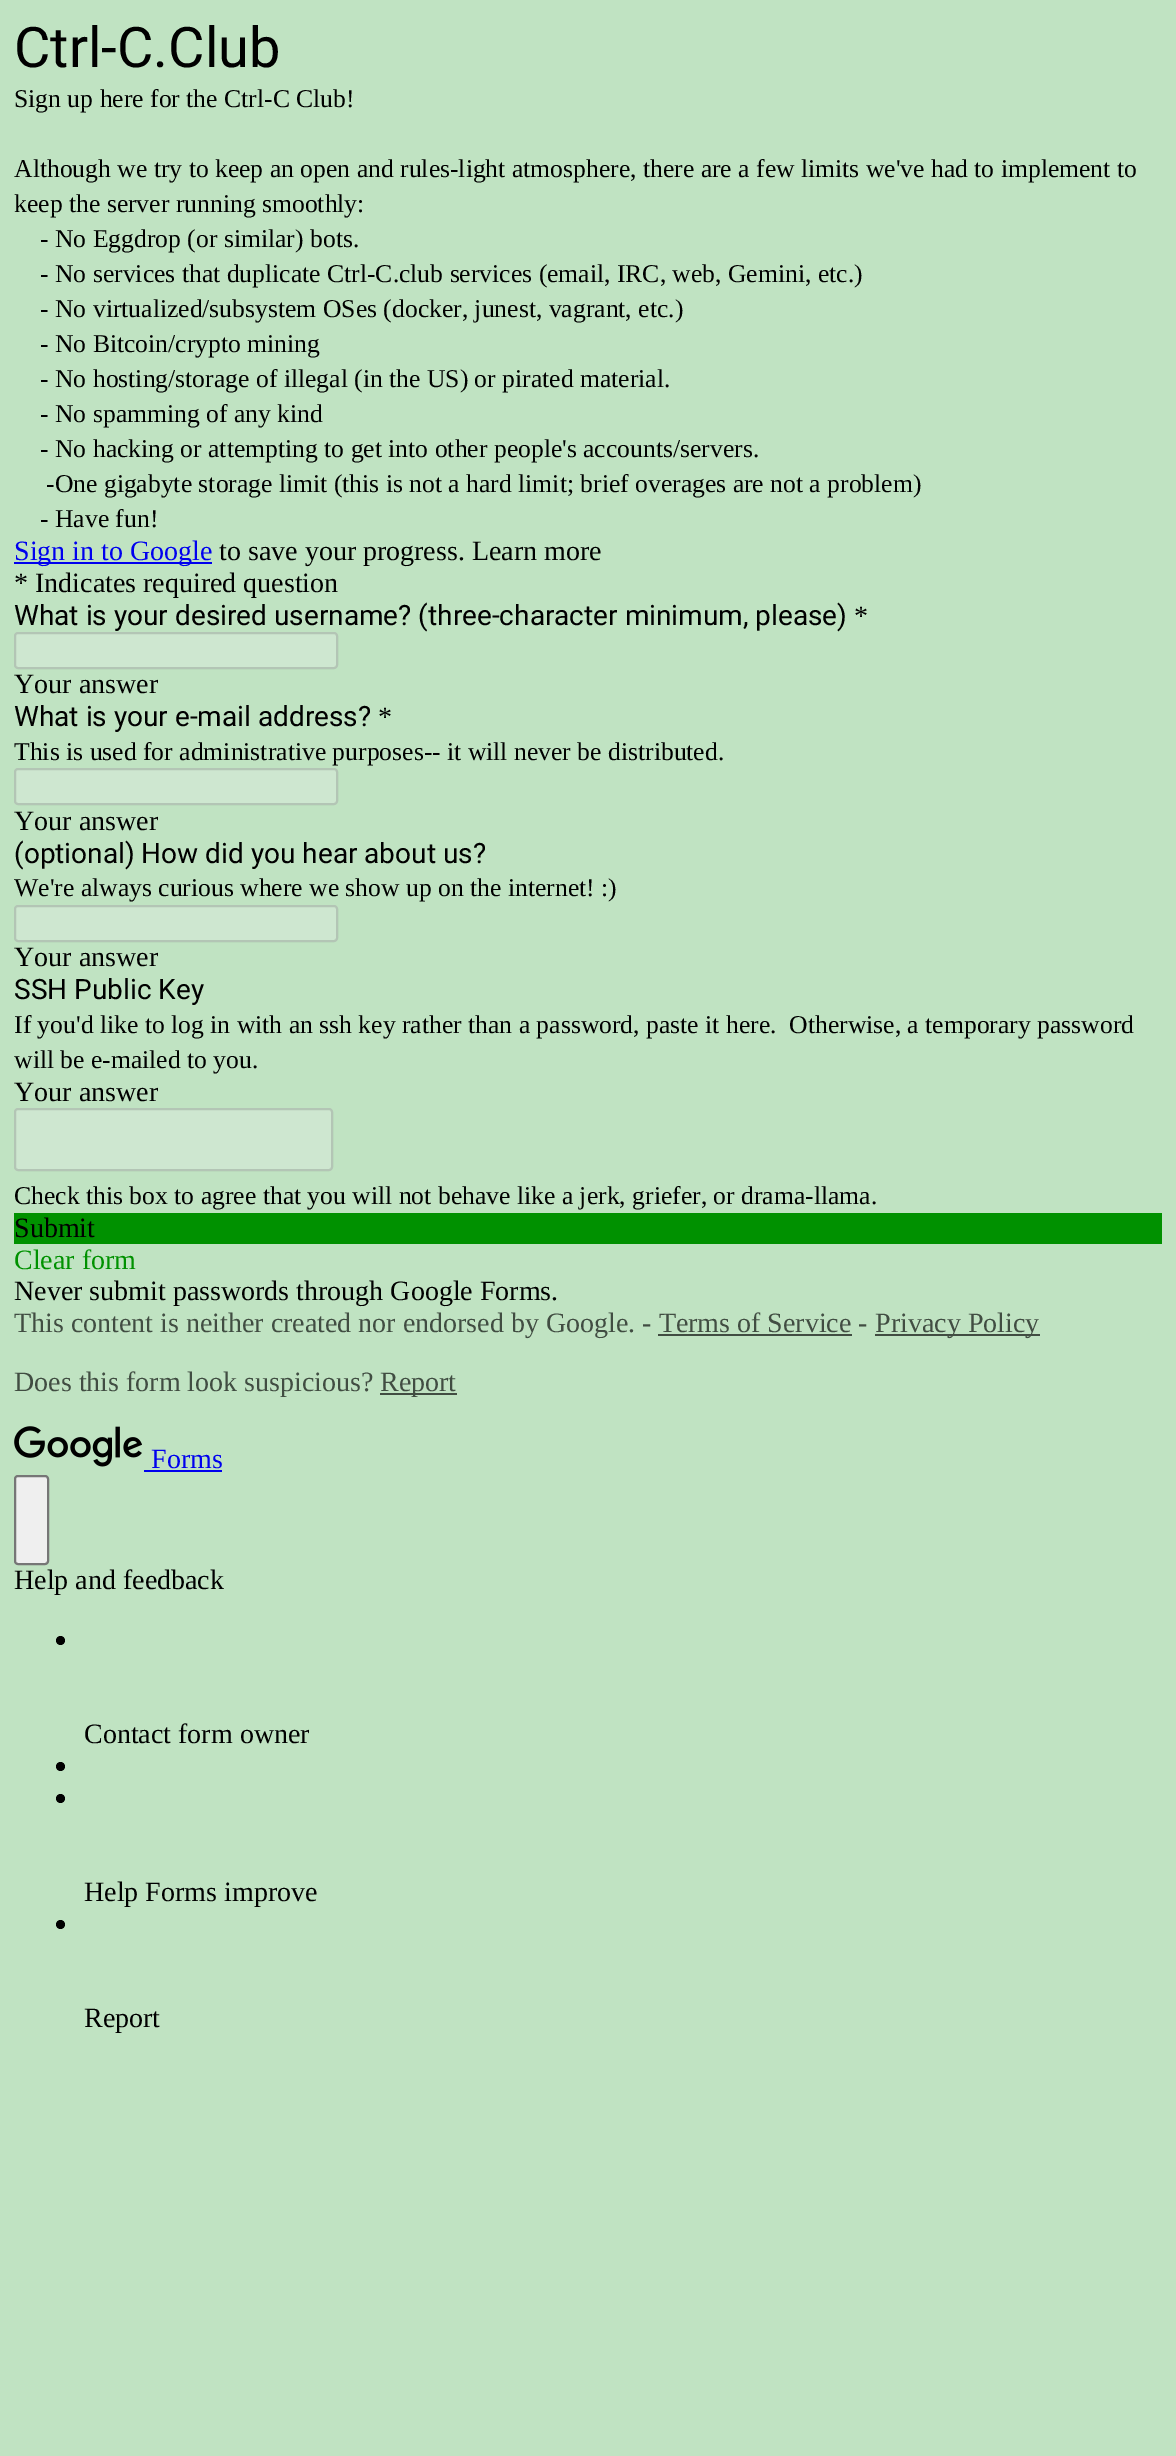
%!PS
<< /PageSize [1176 2456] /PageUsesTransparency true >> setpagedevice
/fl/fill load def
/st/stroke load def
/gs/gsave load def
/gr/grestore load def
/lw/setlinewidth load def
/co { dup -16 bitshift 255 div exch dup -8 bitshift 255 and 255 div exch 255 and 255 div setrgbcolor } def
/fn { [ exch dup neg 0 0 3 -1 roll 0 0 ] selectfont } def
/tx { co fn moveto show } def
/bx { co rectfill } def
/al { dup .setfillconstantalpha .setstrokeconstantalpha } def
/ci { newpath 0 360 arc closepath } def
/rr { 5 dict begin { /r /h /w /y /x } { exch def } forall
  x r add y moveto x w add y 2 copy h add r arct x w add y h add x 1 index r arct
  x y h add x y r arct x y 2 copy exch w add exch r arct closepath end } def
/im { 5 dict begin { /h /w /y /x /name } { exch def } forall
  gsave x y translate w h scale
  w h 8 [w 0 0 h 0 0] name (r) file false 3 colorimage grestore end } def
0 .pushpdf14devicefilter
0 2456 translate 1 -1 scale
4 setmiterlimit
0 0 1176 2456 16#C0E3C2 bx
14 562 198 2 16#0000EE bx
16#CEE7D0 co
14 632 324 37 4 rr fl
0.3 al
16#767676 co
2 lw
15 633 322 35 3 rr st
1 al
16#CEE7D0 co
14 768 324 37 4 rr fl
0.3 al
16#767676 co
15 769 322 35 3 rr st
1 al
16#CEE7D0 co
14 905 324 37 4 rr fl
0.3 al
16#767676 co
15 906 322 35 3 rr st
1 al
16#CEE7D0 co
14 1108 319 63 4 rr fl
0.3 al
16#767676 co
15 1109 317 61 3 rr st
1 al
14 1213 1148 31 16#009100 bx
875 1334 165 2 16#414D42 bx
658 1334 194 2 16#414D42 bx
380 1393 77 2 16#414D42 bx
(media/1.raw) 14 1426 128 41 im
144 1470 78 2 16#0000EE bx
16#EFEFEF co
15 1476 33 88 3 rr gs fl gr
16#767676 co
st
16#000000 co
60.5 1640.5 4.5 ci fl
60.5 1766.5 4.5 ci fl
60.5 1798.5 4.5 ci fl
60.5 1924.5 4.5 ci fl
(Ctrl-C.Club) 14 67 /Roboto-Regular 56 16#000000 tx
(Sign up here for the Ctrl-C Club!) 14 107 /LiberationSerif-Regular 25.65 16#000000 tx
(Although we try to keep an open and rules-light atmosphere, there are a few limits we've had to implement to) 14 177 /LiberationSerif-Regular 25.65 16#000000 tx
(keep the server running smoothly:) 14 212 /LiberationSerif-Regular 25.65 16#000000 tx
(- No Eggdrop \(or similar\) bots.) 40 247 /LiberationSerif-Regular 25.65 16#000000 tx
(- No services that duplicate Ctrl-C.club services \(email, IRC, web, Gemini, etc.\)) 40 282 /LiberationSerif-Regular 25.65 16#000000 tx
(- No virtualized/subsystem OSes \(docker, junest, vagrant, etc.\)) 40 317 /LiberationSerif-Regular 25.65 16#000000 tx
(- No Bitcoin/crypto mining) 40 352 /LiberationSerif-Regular 25.65 16#000000 tx
(- No hosting/storage of illegal \(in the US\) or pirated material.) 40 387 /LiberationSerif-Regular 25.65 16#000000 tx
(- No spamming of any kind) 40 422 /LiberationSerif-Regular 25.65 16#000000 tx
(- No hacking or attempting to get into other people's accounts/servers.) 40 457 /LiberationSerif-Regular 25.65 16#000000 tx
(-One gigabyte storage limit \(this is not a hard limit; brief overages are not a problem\)) 46 492 /LiberationSerif-Regular 25.65 16#000000 tx
(- Have fun!) 40 527 /LiberationSerif-Regular 25.65 16#000000 tx
(Sign in to Google) 14 560 /LiberationSerif-Regular 28 16#0000EE tx
(to save your progress. Learn more) 219 560 /LiberationSerif-Regular 28 16#000000 tx
(* Indicates required question) 14 592 /LiberationSerif-Regular 28 16#000000 tx
(What is your desired username? \(three-character minimum, please\)) 14 625 /Roboto-Regular 28 16#000000 tx
(*) 854 625 /LiberationSerif-Regular 28 16#000000 tx
(Your answer) 14 693 /LiberationSerif-Regular 28 16#000000 tx
(What is your e-mail address?) 14 726 /Roboto-Regular 28 16#000000 tx
(*) 378 726 /LiberationSerif-Regular 28 16#000000 tx
(This is used for administrative purposes-- it will never be distributed.) 14 760 /LiberationSerif-Regular 25.65 16#000000 tx
(Your answer) 14 830 /LiberationSerif-Regular 28 16#000000 tx
(\(optional\) How did you hear about us?) 14 863 /Roboto-Regular 28 16#000000 tx
(We're always curious where we show up on the internet! :\)) 14 896 /LiberationSerif-Regular 25.65 16#000000 tx
(Your answer) 14 966 /LiberationSerif-Regular 28 16#000000 tx
(SSH Public Key) 14 999 /Roboto-Regular 28 16#000000 tx
(If you'd like to log in with an ssh key rather than a password, paste it here.  Otherwise, a temporary password) 14 1033 /LiberationSerif-Regular 25.65 16#000000 tx
(will be e-mailed to you.) 14 1068 /LiberationSerif-Regular 25.65 16#000000 tx
(Your answer) 14 1101 /LiberationSerif-Regular 28 16#000000 tx
(Check this box to agree that you will not behave like a jerk, griefer, or drama-llama.) 14 1204 /LiberationSerif-Regular 25.65 16#000000 tx
(Submit) 14 1237 /LiberationSerif-Regular 28 16#000000 tx
(Clear form) 14 1269 /LiberationSerif-Regular 28 16#009100 tx
(Never submit passwords through Google Forms.) 14 1300 /LiberationSerif-Regular 28 16#000000 tx
(This content is neither created nor endorsed by Google. - Terms of Service -) 14 1332 /LiberationSerif-Regular 28 16#414D42 tx
(Privacy Policy) 875 1332 /LiberationSerif-Regular 28 16#414D42 tx
(Does this form look suspicious?) 14 1391 /LiberationSerif-Regular 28 16#414D42 tx
(Report) 380 1391 /LiberationSerif-Regular 28 16#414D42 tx
(Forms) 151 1468 /LiberationSerif-Regular 28 16#0000EE tx
(Help and feedback) 14 1589 /LiberationSerif-Regular 28 16#000000 tx
(Contact form owner) 84 1743 /LiberationSerif-Regular 28 16#000000 tx
(Help Forms improve) 84 1901 /LiberationSerif-Regular 28 16#000000 tx
(Report) 84 2027 /LiberationSerif-Regular 28 16#000000 tx
.poppdf14devicefilter showpage
